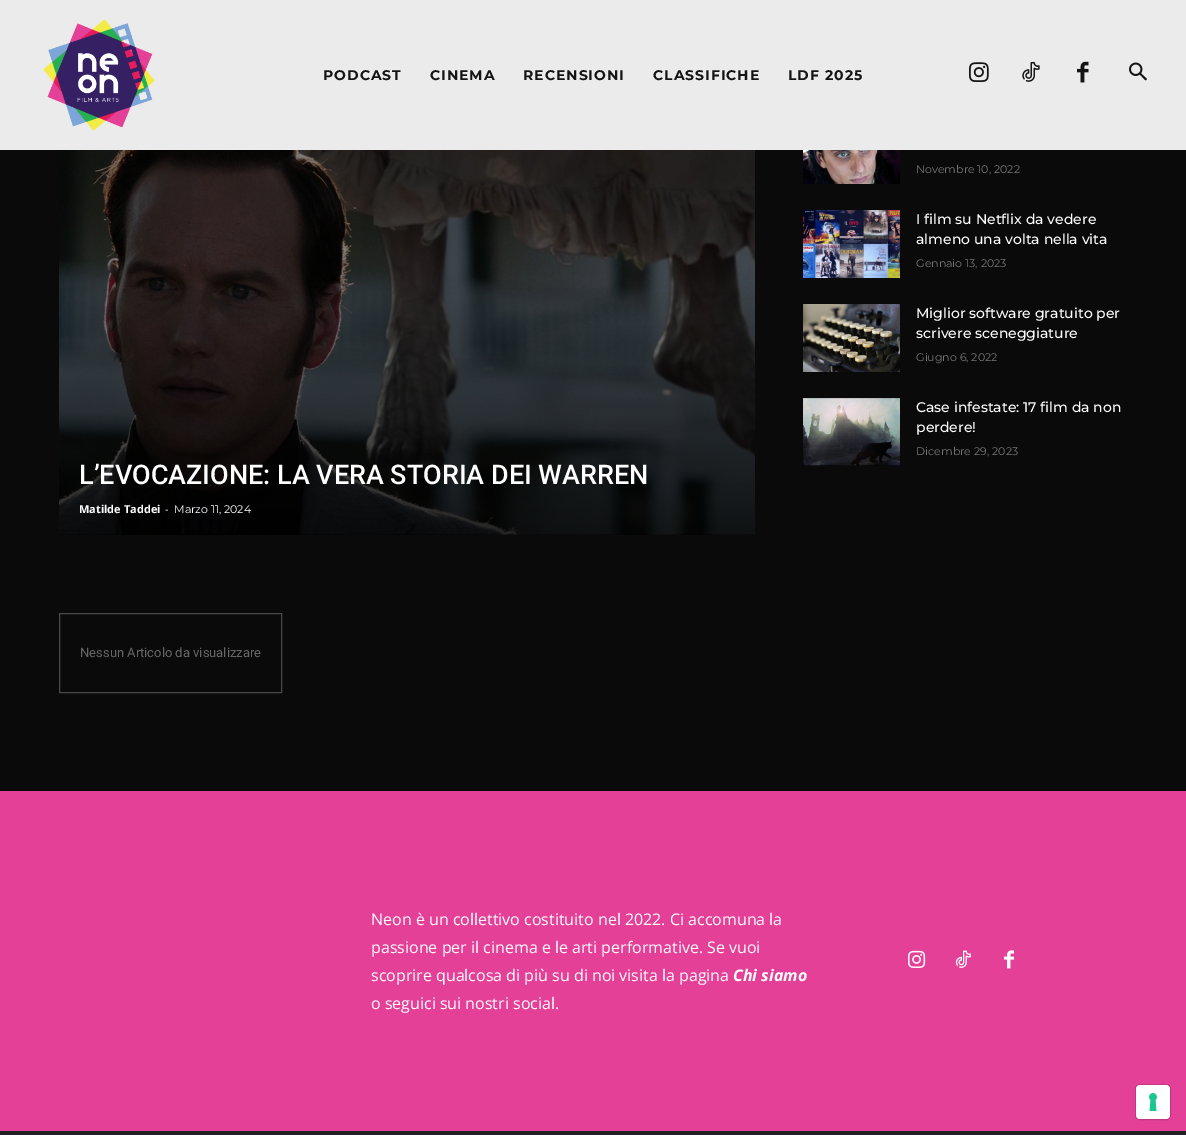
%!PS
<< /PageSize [1186 1135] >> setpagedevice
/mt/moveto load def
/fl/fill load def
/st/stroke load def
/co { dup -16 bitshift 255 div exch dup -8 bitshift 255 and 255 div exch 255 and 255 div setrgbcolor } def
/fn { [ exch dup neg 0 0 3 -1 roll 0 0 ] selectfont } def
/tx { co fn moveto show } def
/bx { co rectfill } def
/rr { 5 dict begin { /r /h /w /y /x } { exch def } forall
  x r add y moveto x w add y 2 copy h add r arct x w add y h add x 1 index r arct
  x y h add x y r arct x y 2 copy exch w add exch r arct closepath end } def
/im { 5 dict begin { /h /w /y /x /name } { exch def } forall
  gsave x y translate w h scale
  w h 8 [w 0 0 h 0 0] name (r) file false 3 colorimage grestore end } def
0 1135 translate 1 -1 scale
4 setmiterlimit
0 0 1186 1135 16#0A0A0A bx
0 0 1186 150 16#EBEBEB bx
(media/1.raw) 43 19 112 112 im
(media/2.raw) 969 62 20 20 im
(media/3.raw) 1022 62 18 20 im
(media/4.raw) 1077 61 12 22 im
(media/5.raw) 1129 62 18 19 im
(media/6.raw) 803 150 97 34 im
(media/7.raw) 803 210 97 68 im
(media/8.raw) 803 304 97 68 im
(media/9.raw) 803 398 97 68 im
(media/10.raw) 59 150 696 385 im
16#494949 co
59.5 613.5 222 79 rectstroke
0 791 1186 340 16#E54098 bx
(media/11.raw) 908 950 18 18 im
(media/12.raw) 955 950 16 18 im
(media/13.raw) 1004 950 10 19 im
0 1131 1186 4 16#222222 bx
16#C33681 co
1135.5 1084.5 35 35 4.5 rr st
16#FFFFFF co
1136 1085 34 34 4 rr fl
(media/14.raw) 1149 1093 8 18 im
/Montserrat-Bold 14 fn
16#141414 co
323 80 mt 1 0 (PODCAST) ashow
430 80 mt 1 0 (CINEMA) ashow
523 80 mt 1 0 (RECENSIONI) ashow
653 80 mt 1 0 (CLASSIFICHE) ashow
788 80 mt 1 0 (LDF 2025) ashow
(Novembre 10, 2022) 916 173 /Montserrat-Regular 11 16#767676 tx
(I film su Netflix da vedere) 916 224 /Montserrat-Medium 14 16#FFFFFF tx
(almeno una volta nella vita) 916 244 /Montserrat-Medium 14 16#FFFFFF tx
(Gennaio 13, 2023) 916 267 /Montserrat-Regular 11 16#767676 tx
(Miglior software gratuito per) 916 318 /Montserrat-Medium 14 16#FFFFFF tx
(scrivere sceneggiature) 916 338 /Montserrat-Medium 14 16#FFFFFF tx
(Giugno 6, 2022) 916 361 /Montserrat-Regular 11 16#767676 tx
(Case infestate: 17 film da non) 916 412 /Montserrat-Medium 14 16#FFFFFF tx
(perdere!) 916 432 /Montserrat-Medium 14 16#FFFFFF tx
(Dicembre 29, 2023) 916 455 /Montserrat-Regular 11 16#767676 tx
(L’EVOCAZIONE: LA VERA STORIA DEI WARREN) 79 484 /Roboto-Medium 27 16#FFFFFF tx
(Matilde Taddei) 79 513 /OpenSans-Bold 11 16#FFFFFF tx
(-) 165 513 /OpenSans-Regular 11 16#FFFFFF tx
(Marzo 11, 2024) 174 513 /Montserrat-Regular 11 16#FFFFFF tx
(Nessun Articolo da visualizzare) 80 657 /Roboto-Regular 13 16#666666 tx
(Neon è un collettivo costituito nel 2022. Ci accomuna la) 371 925 /OpenSans-Regular 16 16#FFFFFF tx
(passione per il cinema e le arti performative. Se vuoi) 371 953 /OpenSans-Regular 16 16#FFFFFF tx
(scoprire qualcosa di più su di noi visita la pagina) 371 981 /OpenSans-Regular 16 16#FFFFFF tx
(Chi siamo) 733 981 /OpenSans-BoldItalic 16 16#FFFFFF tx
(o seguici sui nostri social.) 371 1009 /OpenSans-Regular 16 16#FFFFFF tx
showpage
